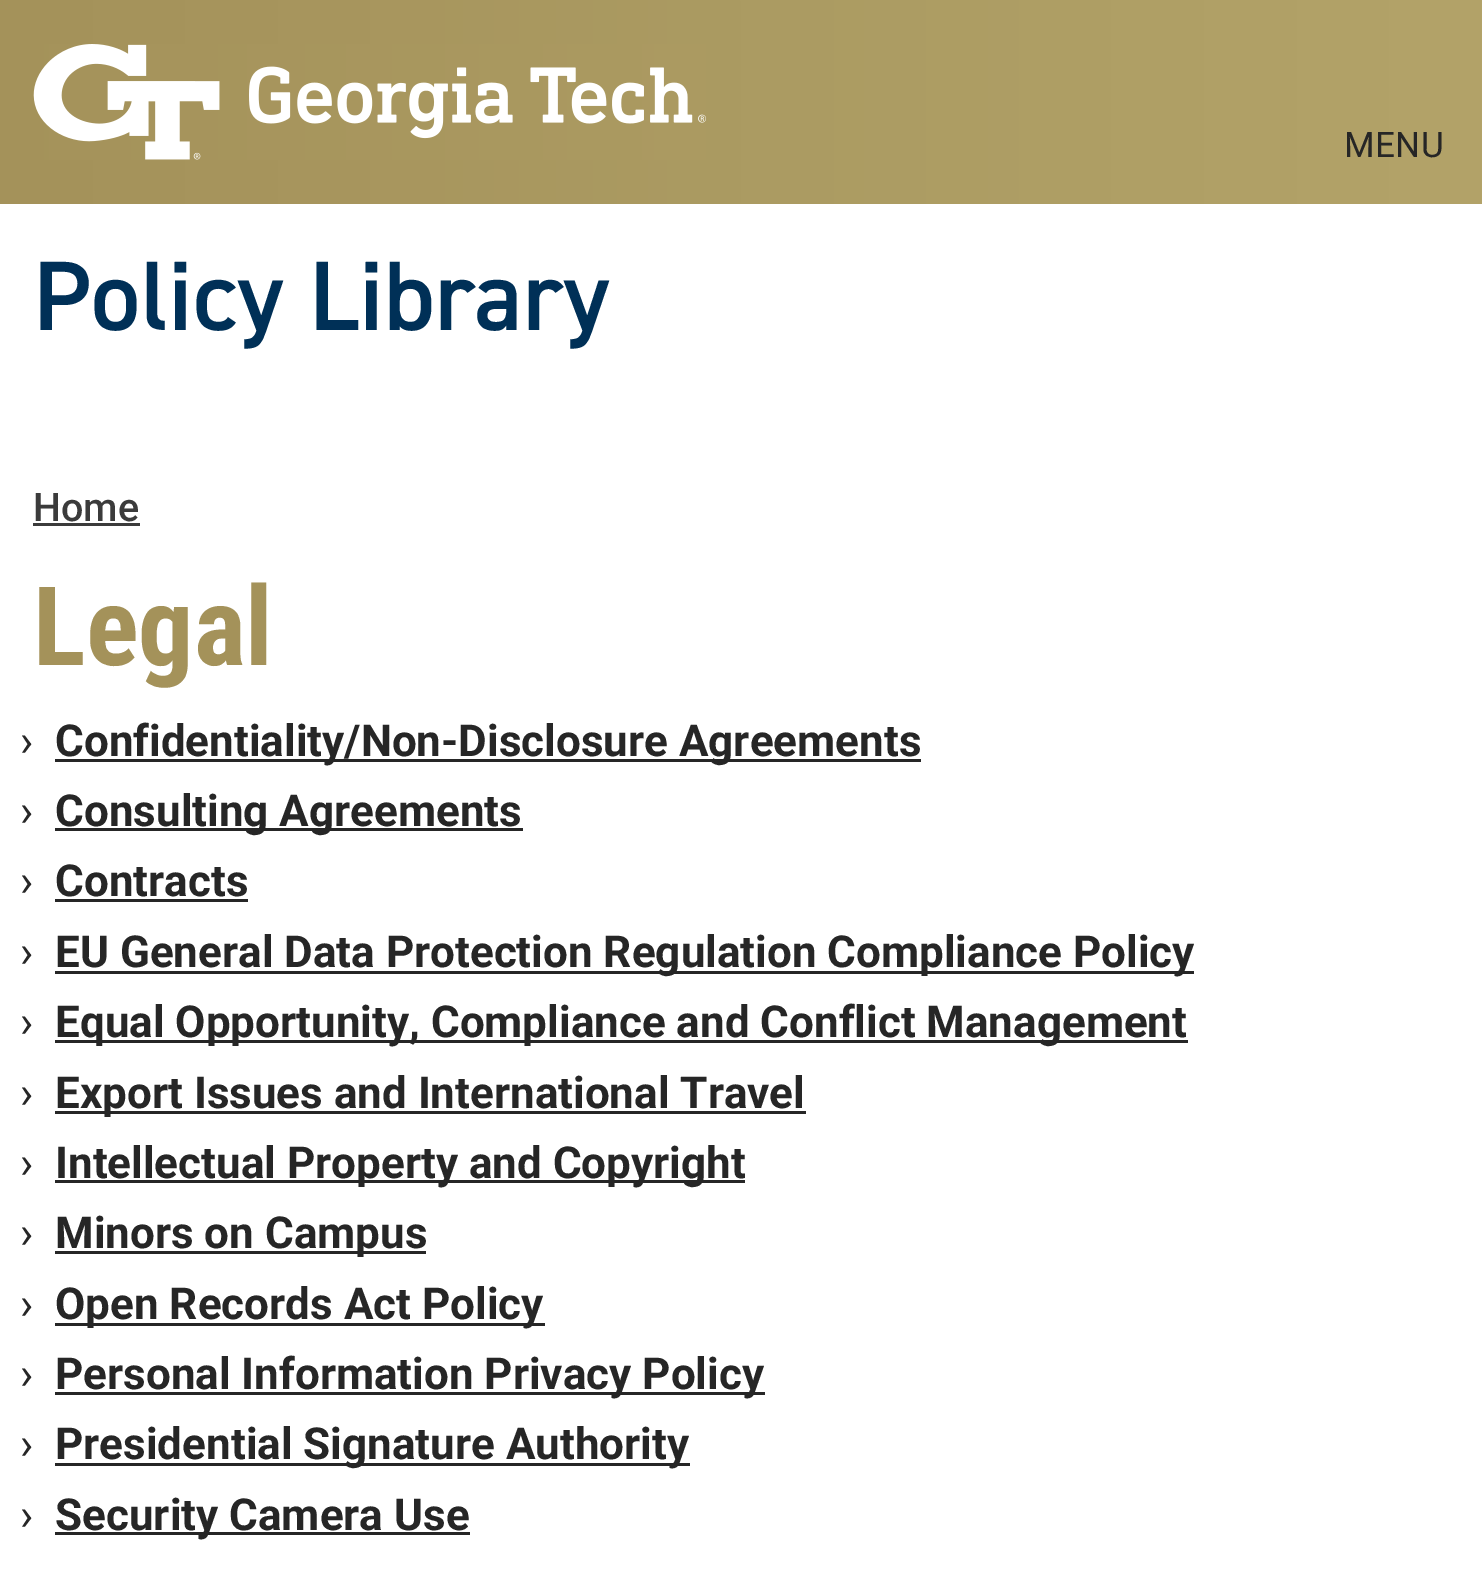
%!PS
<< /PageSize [1482 1581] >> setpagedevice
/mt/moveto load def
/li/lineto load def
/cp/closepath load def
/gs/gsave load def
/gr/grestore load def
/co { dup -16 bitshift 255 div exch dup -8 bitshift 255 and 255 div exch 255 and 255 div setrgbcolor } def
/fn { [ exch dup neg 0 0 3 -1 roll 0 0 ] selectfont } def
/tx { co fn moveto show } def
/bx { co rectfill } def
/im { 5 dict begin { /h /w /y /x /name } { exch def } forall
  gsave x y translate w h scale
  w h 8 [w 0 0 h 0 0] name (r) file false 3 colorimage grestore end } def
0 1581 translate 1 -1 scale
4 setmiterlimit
0 0 1482 1581 16#FFFFFF bx
gs 0 0 mt 1482 0 li 1482 204 li 0 204 li cp clip newpath
<< /ShadingType 2 /ColorSpace /DeviceRGB /Coords [0 102 1482 102] /Extend [true true] /Function << /FunctionType 2 /Domain [0 1] /C0 [.643 .573 .353] /C1 [.702 .639 .412] /N 1 >> >> shfill gr
(media/1.raw) 33 44 673 116 im
33 523 107 3 16#3B3B3B bx
55 759 866 3 16#262626 bx
55 828 468 3 16#262626 bx
55 899 193 3 16#262626 bx
55 971 1139 3 16#262626 bx
55 1040 1133 3 16#262626 bx
55 1111 751 3 16#262626 bx
55 1180 690 3 16#262626 bx
55 1251 371 3 16#262626 bx
55 1323 490 3 16#262626 bx
55 1392 710 3 16#262626 bx
55 1463 635 3 16#262626 bx
55 1532 415 3 16#262626 bx
/Roboto-Regular 35 fn
1344 157 mt .5 0 (MENU) ashow
(Policy Library) 33 330 /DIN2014-SemiBold 99 16#003057 tx
(Home) 33 521 /Roboto-Medium 39.5 16#3B3B3B tx
(Legal) 33 665 /RobotoCondensed-Bold 110 16#A4925A tx
(›) 20 756 /Roboto-Regular 44 16#262626 tx
(Confidentiality/Non-Disclosure Agreements) 55 756 /Roboto-Bold 44 16#262626 tx
(›) 20 826 /Roboto-Regular 44 16#262626 tx
(Consulting Agreements) 55 826 /Roboto-Bold 44 16#262626 tx
(›) 20 896 /Roboto-Regular 44 16#262626 tx
(Contracts) 55 896 /Roboto-Bold 44 16#262626 tx
(›) 20 967 /Roboto-Regular 44 16#262626 tx
(EU General Data Protection Regulation Compliance Policy) 55 967 /Roboto-Bold 44 16#262626 tx
(›) 20 1037 /Roboto-Regular 44 16#262626 tx
(Equal Opportunity, Compliance and Conflict Management) 55 1037 /Roboto-Bold 44 16#262626 tx
(›) 20 1108 /Roboto-Regular 44 16#262626 tx
(Export Issues and International Travel) 55 1108 /Roboto-Bold 44 16#262626 tx
(›) 20 1178 /Roboto-Regular 44 16#262626 tx
(Intellectual Property and Copyright) 55 1178 /Roboto-Bold 44 16#262626 tx
(›) 20 1248 /Roboto-Regular 44 16#262626 tx
(Minors on Campus) 55 1248 /Roboto-Bold 44 16#262626 tx
(›) 20 1319 /Roboto-Regular 44 16#262626 tx
(Open Records Act Policy) 55 1319 /Roboto-Bold 44 16#262626 tx
(›) 20 1389 /Roboto-Regular 44 16#262626 tx
(Personal Information Privacy Policy) 55 1389 /Roboto-Bold 44 16#262626 tx
(›) 20 1459 /Roboto-Regular 44 16#262626 tx
(Presidential Signature Authority) 55 1459 /Roboto-Bold 44 16#262626 tx
(›) 20 1530 /Roboto-Regular 44 16#262626 tx
(Security Camera Use) 55 1530 /Roboto-Bold 44 16#262626 tx
showpage
